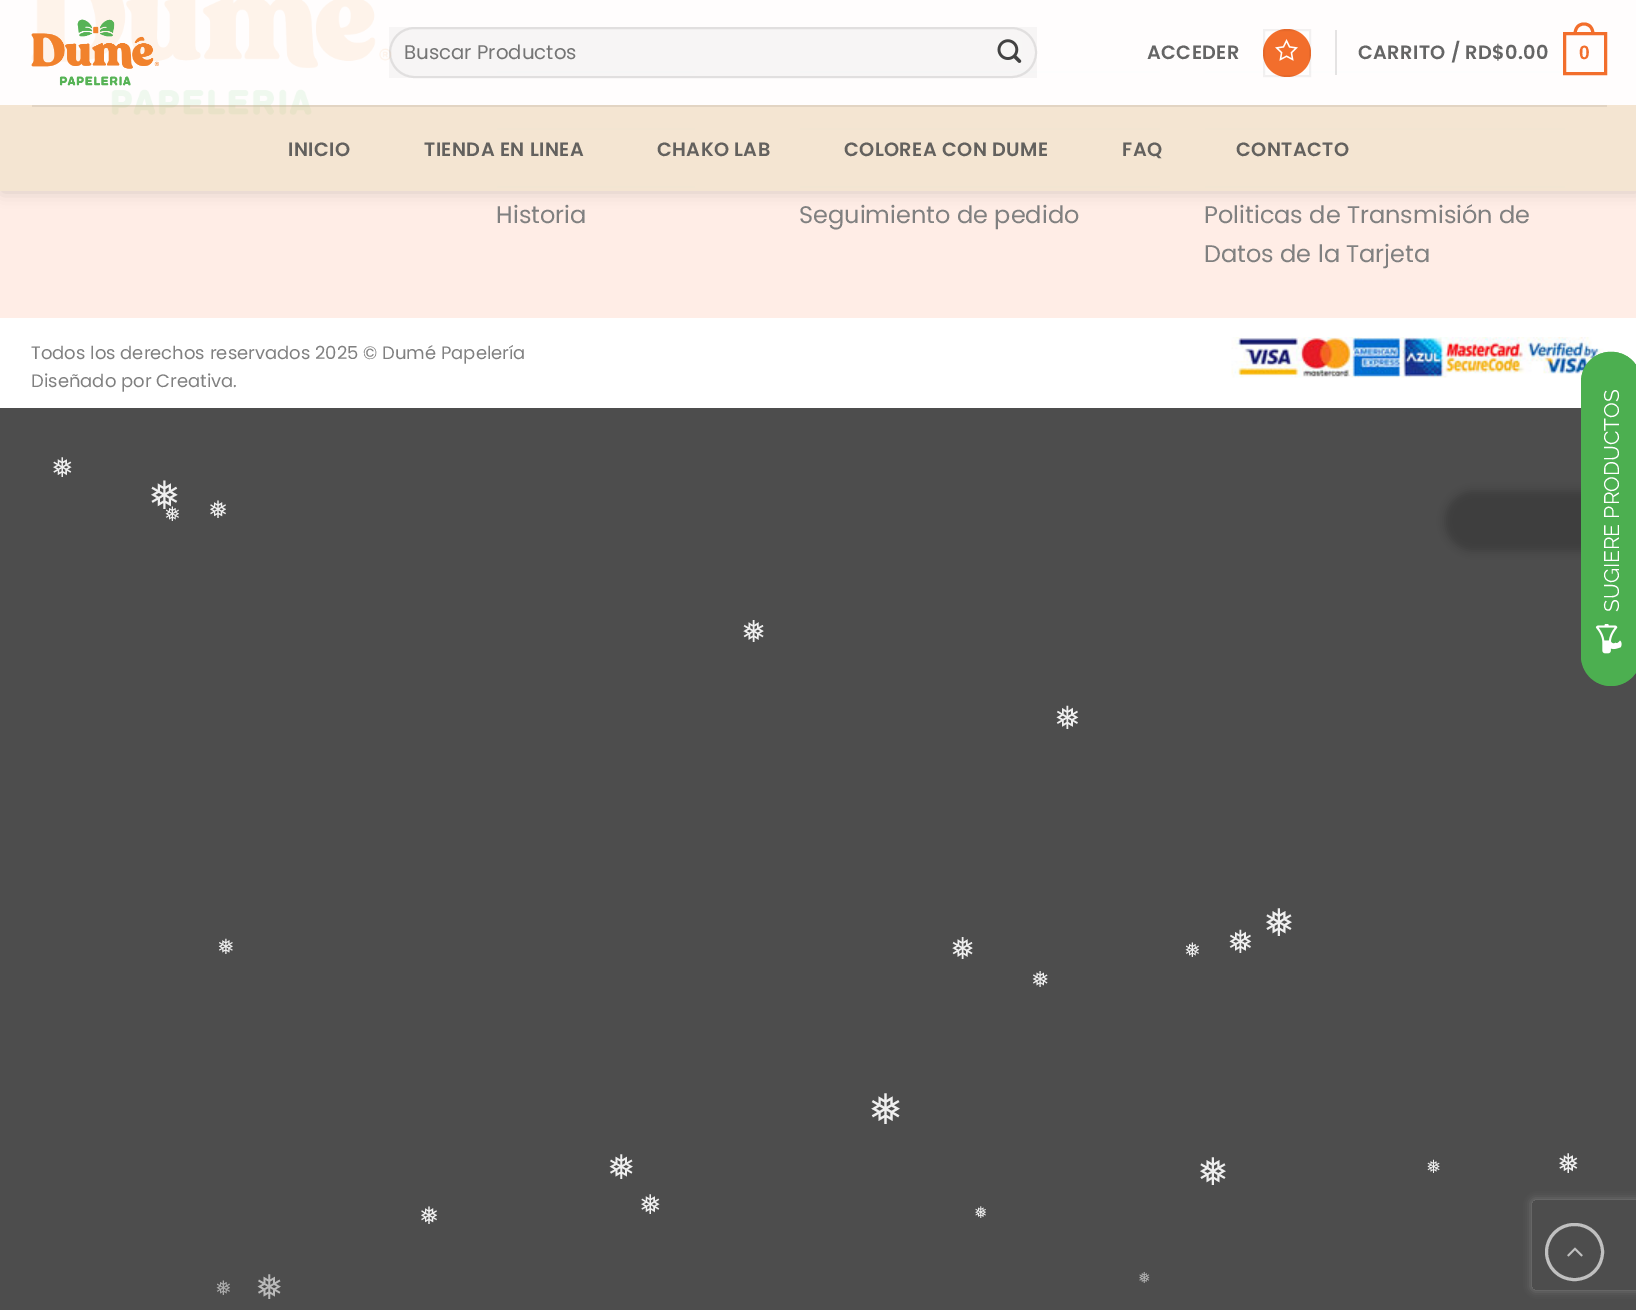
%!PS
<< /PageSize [1636 1310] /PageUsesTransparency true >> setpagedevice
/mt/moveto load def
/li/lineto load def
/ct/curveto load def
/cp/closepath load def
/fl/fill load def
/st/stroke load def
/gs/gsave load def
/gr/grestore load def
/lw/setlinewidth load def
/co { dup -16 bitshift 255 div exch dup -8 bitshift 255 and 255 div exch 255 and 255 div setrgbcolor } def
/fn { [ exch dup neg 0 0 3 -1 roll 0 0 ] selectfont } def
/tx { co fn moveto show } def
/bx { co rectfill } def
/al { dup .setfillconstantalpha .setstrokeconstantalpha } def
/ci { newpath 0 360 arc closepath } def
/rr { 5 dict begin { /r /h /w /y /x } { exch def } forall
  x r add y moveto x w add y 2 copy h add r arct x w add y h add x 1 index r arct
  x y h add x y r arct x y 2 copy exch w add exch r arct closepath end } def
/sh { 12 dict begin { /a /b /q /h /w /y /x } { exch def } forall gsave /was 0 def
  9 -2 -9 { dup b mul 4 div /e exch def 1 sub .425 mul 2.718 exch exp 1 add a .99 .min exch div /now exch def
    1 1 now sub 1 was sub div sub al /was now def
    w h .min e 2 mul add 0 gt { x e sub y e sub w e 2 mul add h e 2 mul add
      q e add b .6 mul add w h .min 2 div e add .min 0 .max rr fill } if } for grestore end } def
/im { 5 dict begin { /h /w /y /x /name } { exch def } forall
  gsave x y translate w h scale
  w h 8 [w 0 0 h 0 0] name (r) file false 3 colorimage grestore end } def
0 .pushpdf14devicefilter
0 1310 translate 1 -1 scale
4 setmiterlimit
0 0 1636 1310 16#4D4D4D bx
0 318 1636 90 16#FFFFFF bx
0 0 1636 318 16#FFEDE6 bx
(media/4.raw) 31 0 361 115 im
497 71 198 2 16#ECECEC bx
497 128 198 2 16#ECECEC bx
497 186 198 2 16#ECECEC bx
800 71 360 2 16#ECECEC bx
800 128 360 2 16#ECECEC bx
800 186 360 2 16#ECECEC bx
1205 71 360 2 16#ECECEC bx
1205 128 360 2 16#ECECEC bx
1205 186 360 2 16#ECECEC bx
gs
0 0 mt 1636 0 li 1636 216 li 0 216 li cp 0 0 mt 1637 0 li 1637 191 li 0 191 li cp eoclip newpath
16#000000 co
2 2 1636 190 0 7.5 .15 sh
gr
0.9 al
0 0 1636 191 16#FFFFFF bx
1 al
(media/1.raw) 31 19 128 67 im
0.03 al
389 27 648 51 16#000000 bx
0.09 al
2 lw
390 28 646 49 24.5 rr st
1 al
(media/2.raw) 997 39 25 24 im
16#F26E2C co
1287 53 24 ci fl
0.05 al
16#000000 co
1264 30 46 46 rectstroke
1 al
(media/3.raw) 1275 39 23 22 im
0.1 al
1335 30 2 45 16#000000 bx
1 al
16#F26E2C co
3 lw
1564.5 33.5 41 40 rectstroke
1584 22.5 mt 1591 22.5 1594.5 28 1594.5 34.5 ct 1573.5 34.5 li 1573.5 28 1577 22.5 1584 22.5 ct cp 1584 25.5 mt 1589.5 25.5 1591.5 30 1591.5 34.5 ct 1576.5 34.5 li 1576.5 30 1578.5 25.5 1584 25.5 ct cp eofill
0.33 al
0 105 1636 86 16#DDB57A bx
0.1 al
32 105 1575 2 16#424242 bx
1 al
(media/5.raw) 1231 337 373 41 im
gs
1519 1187 mt 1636 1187 li 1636 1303 li 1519 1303 li cp 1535 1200 mt 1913 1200 li 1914.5 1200 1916 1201.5 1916 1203 ct 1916 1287 li 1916 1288.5 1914.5 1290 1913 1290 ct 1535 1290 li 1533.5 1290 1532 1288.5 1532 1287 ct 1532 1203 li 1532 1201.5 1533.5 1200 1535 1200 ct cp eoclip newpath
16#808080 co
1532 1200 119 90 3 4 1 sh
gr
16#C0C0C0 co
1546.5 1224.5 56 55 27.5 rr st
(media/6.raw) 1567 1247 16 10 im
16#000000 co
1445 491 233 60 30 4 .2 sh
16#4CAF50 co
1581 656 mt 1581 382 li 1581 365 1594 352 1611 352 ct 1628 352 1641 365 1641 382 ct 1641 656 li 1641 672 1628 686 1611 686 ct 1594 686 1581 672 1581 656 ct cp fl
1.5 lw
1582 655.5 mt 1582 382 li 1582 365.5 1595 352.5 1611 352.5 ct 1627 352.5 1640.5 365.5 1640.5 382 ct 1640.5 655.5 li 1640.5 671.5 1627 685 1611 685 ct 1595 685 1582 671.5 1582 655.5 ct cp st
(media/7.raw) 1595 624 27 30 im
(Buscar Productos) 404 59 /Poppins-Regular 19.75 16#757575 tx
/Poppins-SemiBold 19.25 fn
16#656565 co
1147 59 mt .4 0 (ACCEDER) ashow
1358 59 mt .4 0 (CARRITO / RD$0.00) ashow
/LiberationSans-Bold 19.25 fn
16#F26E2C co
1579 59 mt .4 0 (0) ashow
/Poppins-SemiBold 19.25 fn
16#63615E co
288 156 mt .4 0 (INICIO) ashow
424 156 mt .4 0 (TIENDA EN LINEA) ashow
657 156 mt .4 0 (CHAKO LAB) ashow
844 156 mt .4 0 (COLOREA CON DUME) ashow
1122 156 mt .4 0 (FAQ) ashow
1236 156 mt .4 0 (CONTACTO) ashow
(Historia) 496 223 /Poppins-Regular 24 16#808080 tx
(Seguimiento de pedido) 799 223 /Poppins-Regular 24 16#808080 tx
(Politicas de Transmisión de) 1204 223 /Poppins-Regular 24 16#808080 tx
(Datos de la Tarjeta) 1204 262 /Poppins-Regular 24 16#808080 tx
(Todos los derechos reservados 2025 © Dumé Papelería) 31 359 /Poppins-Regular 18 16#808080 tx
(Diseñado por Creativa.) 31 387 /Poppins-Regular 18 16#808080 tx
(❅) 51 477 /DejaVuSans-Regular 27 16#EFEFEF tx
(❅) 148 509 /DejaVuSans-Regular 39 16#EFEFEF tx
(❅) 208 518 /DejaVuSans-Regular 24 16#EFEFEF tx
(❅) 164 521 /DejaVuSans-Regular 20 16#EFEFEF tx
(❅) 741 642 /DejaVuSans-Regular 30 16#EFEFEF tx
(❅) 1054 729 /DejaVuSans-Regular 32 16#EFEFEF tx
(❅) 1263 936 /DejaVuSans-Regular 38 16#EFEFEF tx
(❅) 217 954 /DejaVuSans-Regular 21 16#EFEFEF tx
(❅) 950 959 /DejaVuSans-Regular 30 16#EFEFEF tx
(❅) 1184 957 /DejaVuSans-Regular 20 16#EFEFEF tx
(❅) 1227 953 /DejaVuSans-Regular 32 16#EFEFEF tx
(❅) 1031 987 /DejaVuSans-Regular 22 16#EFEFEF tx
(❅) 868 1124 /DejaVuSans-Regular 42 16#EFEFEF tx
(❅) 607 1179 /DejaVuSans-Regular 34 16#EFEFEF tx
(❅) 1197 1185 /DejaVuSans-Regular 38 16#EFEFEF tx
(❅) 1426 1173 /DejaVuSans-Regular 18 16#EFEFEF tx
(❅) 1557 1173 /DejaVuSans-Regular 27 16#EFEFEF tx
(❅) 419 1224 /DejaVuSans-Regular 24 16#EFEFEF tx
(❅) 639 1214 /DejaVuSans-Regular 27 16#EFEFEF tx
(❅) 974 1218 /DejaVuSans-Regular 16 16#EFEFEF tx
(❅) 215 1295 /DejaVuSans-Regular 20 16#ABABAB tx
(❅) 255 1299 /DejaVuSans-Regular 34 16#BABABA tx
(❅) 1138 1283 /DejaVuSans-Regular 15 16#B3B3B3 tx
/Raleway-Regular 21 fn
16#FFFFFF co
gs 1619 612 translate -90 rotate 0 0 mt (SUGIERE PRODUCTOS) show gr
.poppdf14devicefilter showpage
